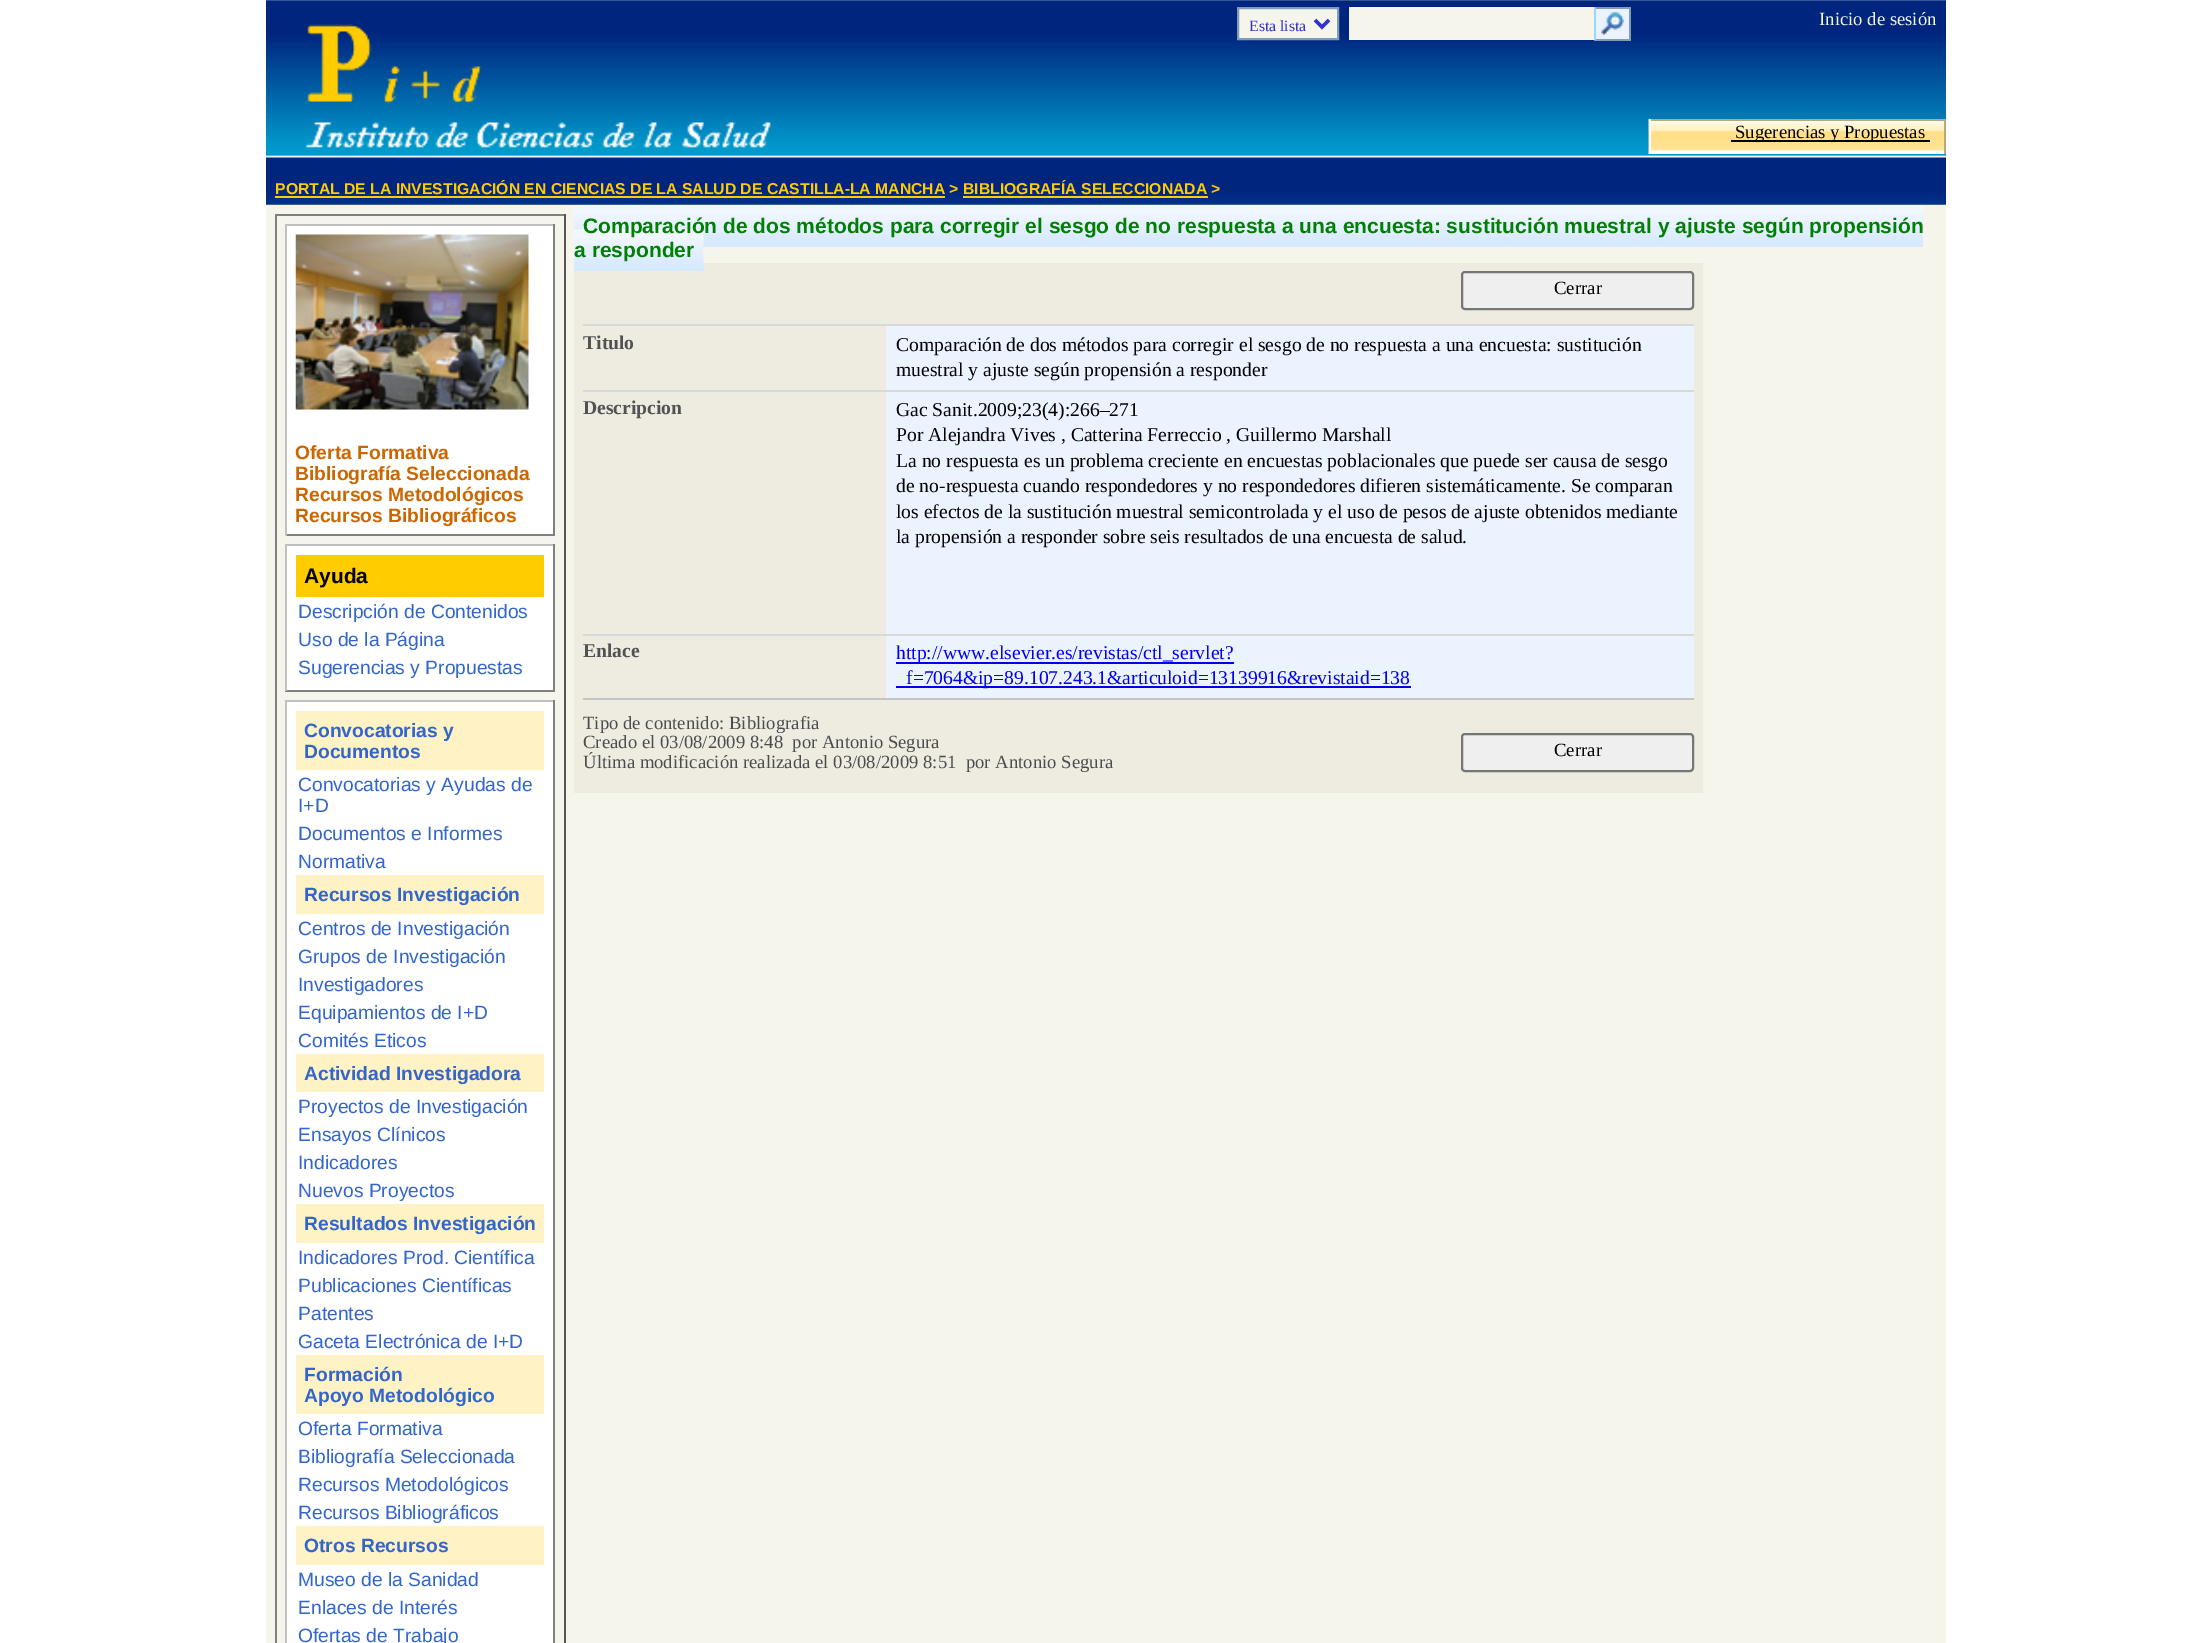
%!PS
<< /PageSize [2209 1643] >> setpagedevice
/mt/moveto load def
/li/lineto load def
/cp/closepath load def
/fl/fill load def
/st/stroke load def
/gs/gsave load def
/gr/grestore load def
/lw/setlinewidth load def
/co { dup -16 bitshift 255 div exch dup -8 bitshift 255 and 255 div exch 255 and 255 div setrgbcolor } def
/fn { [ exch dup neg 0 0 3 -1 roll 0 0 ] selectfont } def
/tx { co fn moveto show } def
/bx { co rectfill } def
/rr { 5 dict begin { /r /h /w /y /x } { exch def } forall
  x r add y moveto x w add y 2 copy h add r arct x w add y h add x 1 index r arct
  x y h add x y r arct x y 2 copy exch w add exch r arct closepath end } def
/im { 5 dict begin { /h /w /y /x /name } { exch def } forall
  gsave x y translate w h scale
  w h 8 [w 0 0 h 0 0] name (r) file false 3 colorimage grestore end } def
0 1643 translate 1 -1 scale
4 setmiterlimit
0 0 2209 1643 16#FFFFFF bx
266 204 1680 1439 16#F5F5EB bx
(media/1.raw) 266 0 1680 205 im
(media/2.raw) 305 24 466 124 im
1238 8 mt 1338 8 li 1338 39 li 1238 39 li cp gs fl gr
16#7F9DB9 co
2 lw
st
16#3333CC co
3.5 lw
1315 20 mt 1322 27 li 1329 20 li st
1349 7 245 33 16#F5F5EB bx
1596 9 33 30 16#E9F2FD bx
1594 7 37 2 16#7F9DB9 bx
1629 7 2 33 16#7F9DB9 bx
1594 39 37 2 16#7F9DB9 bx
1594 7 2 33 16#9ED6FF bx
(media/3.raw) 1601 12 23 23 im
(media/4.raw) 1648 119 296 35 im
1649 119 297 2 16#C2A770 bx
1944 119 2 35 16#C2A770 bx
1649 119 2 35 16#FFFFFF bx
1731 140 199 2 16#000000 bx
275 196 670 2 16#FFCC00 bx
963 196 245 2 16#FFCC00 bx
275 214 290 2 16#808080 bx
564 214 2 1429 16#555555 bx
275 214 2 1429 16#808080 bx
287 226 266 308 16#FFFFFF bx
285 224 270 2 16#C0C0C0 bx
553 224 2 312 16#808080 bx
285 534 270 2 16#808080 bx
285 224 2 312 16#C0C0C0 bx
(media/5.raw) 295 234 234 176 im
287 546 266 144 16#FFFFFF bx
285 544 270 2 16#C0C0C0 bx
553 544 2 147 16#808080 bx
285 690 270 2 16#808080 bx
285 544 2 147 16#C0C0C0 bx
296 555 248 42 16#FFCC00 bx
287 702 266 941 16#FFFFFF bx
285 700 270 2 16#C0C0C0 bx
553 700 2 943 16#808080 bx
285 700 2 943 16#C0C0C0 bx
296 711 248 59 16#FFF3C6 bx
296 875 248 39 16#FFF3C6 bx
296 1054 248 38 16#FFF3C6 bx
296 1204 248 39 16#FFF3C6 bx
296 1355 248 59 16#FFF3C6 bx
296 1526 248 39 16#FFF3C6 bx
574 263 1129 530 16#EEECE0 bx
(media/6.raw) 574 205 1349 66 im
16#EFEFEF co
1462 272 231 37 3 rr gs fl gr
16#767676 co
2 lw
st
583 324 1111 2 16#D8D8D8 bx
886 326 808 64 16#EBF3FF bx
583 390 1111 2 16#D8D8D8 bx
886 392 808 242 16#EBF3FF bx
583 634 1111 2 16#D8D8D8 bx
886 636 808 62 16#EBF3FF bx
896 662 338 2 16#0000EE bx
896 686 515 2 16#0000EE bx
583 698 1111 2 16#C4C4C4 bx
16#EFEFEF co
1462 734 231 37 3 rr gs fl gr
16#767676 co
st
gs
1250 16 59 21 rectclip
(Esta lista) 1249 31 /LiberationSerif-Regular 15.75 16#3333CC tx
gr
(Inicio de sesión) 1819 25 /LiberationSerif-Regular 18.7 16#F5F5EB tx
(Sugerencias y Propuestas) 1735 138 /LiberationSerif-Regular 18.7 16#000000 tx
(PORTAL DE LA INVESTIGACIÓN EN CIENCIAS DE LA SALUD DE CASTILLA-LA MANCHA > BIBLIOGRAFÍA SELECCIONADA >) 275 194 /LiberationSans-Bold 15.75 16#FFCC00 tx
(Oferta Formativa) 295 459 /LiberationSans-Bold 19.25 16#CC6600 tx
(Bibliografía Seleccionada) 295 480 /LiberationSans-Bold 19.25 16#CC6600 tx
(Recursos Metodológicos) 295 501 /LiberationSans-Bold 19.25 16#CC6600 tx
(Recursos Bibliográficos) 295 522 /LiberationSans-Bold 19.25 16#CC6600 tx
(Ayuda) 304 583 /LiberationSans-Bold 21 16#000000 tx
(Descripción de Contenidos) 298 618 /LiberationSans-Regular 19.25 16#3366CC tx
(Uso de la Página) 298 646 /LiberationSans-Regular 19.25 16#3366CC tx
(Sugerencias y Propuestas) 298 674 /LiberationSans-Regular 19.25 16#3366CC tx
(Convocatorias y) 304 737 /LiberationSans-Bold 19.25 16#3366CC tx
(Documentos) 304 758 /LiberationSans-Bold 19.25 16#3366CC tx
(Convocatorias y Ayudas de) 298 791 /LiberationSans-Regular 19.25 16#3366CC tx
(I+D) 298 812 /LiberationSans-Regular 19.25 16#3366CC tx
(Documentos e Informes) 298 840 /LiberationSans-Regular 19.25 16#3366CC tx
(Normativa) 298 868 /LiberationSans-Regular 19.25 16#3366CC tx
(Recursos Investigación) 304 901 /LiberationSans-Bold 19.25 16#3366CC tx
(Centros de Investigación) 298 935 /LiberationSans-Regular 19.25 16#3366CC tx
(Grupos de Investigación) 298 963 /LiberationSans-Regular 19.25 16#3366CC tx
(Investigadores) 298 991 /LiberationSans-Regular 19.25 16#3366CC tx
(Equipamientos de I+D) 298 1019 /LiberationSans-Regular 19.25 16#3366CC tx
(Comités Eticos) 298 1047 /LiberationSans-Regular 19.25 16#3366CC tx
(Actividad Investigadora) 304 1080 /LiberationSans-Bold 19.25 16#3366CC tx
(Proyectos de Investigación) 298 1113 /LiberationSans-Regular 19.25 16#3366CC tx
(Ensayos Clínicos) 298 1141 /LiberationSans-Regular 19.25 16#3366CC tx
(Indicadores) 298 1169 /LiberationSans-Regular 19.25 16#3366CC tx
(Nuevos Proyectos) 298 1197 /LiberationSans-Regular 19.25 16#3366CC tx
(Resultados Investigación) 304 1230 /LiberationSans-Bold 19.25 16#3366CC tx
(Indicadores Prod. Científica) 298 1264 /LiberationSans-Regular 19.25 16#3366CC tx
(Publicaciones Científicas) 298 1292 /LiberationSans-Regular 19.25 16#3366CC tx
(Patentes) 298 1320 /LiberationSans-Regular 19.25 16#3366CC tx
(Gaceta Electrónica de I+D) 298 1348 /LiberationSans-Regular 19.25 16#3366CC tx
(Formación) 304 1381 /LiberationSans-Bold 19.25 16#3366CC tx
(Apoyo Metodológico) 304 1402 /LiberationSans-Bold 19.25 16#3366CC tx
(Oferta Formativa) 298 1435 /LiberationSans-Regular 19.25 16#3366CC tx
(Bibliografía Seleccionada) 298 1463 /LiberationSans-Regular 19.25 16#3366CC tx
(Recursos Metodológicos) 298 1491 /LiberationSans-Regular 19.25 16#3366CC tx
(Recursos Bibliográficos) 298 1519 /LiberationSans-Regular 19.25 16#3366CC tx
(Otros Recursos) 304 1552 /LiberationSans-Bold 19.25 16#3366CC tx
(Museo de la Sanidad) 298 1586 /LiberationSans-Regular 19.25 16#3366CC tx
(Enlaces de Interés) 298 1614 /LiberationSans-Regular 19.25 16#3366CC tx
(Ofertas de Trabajo) 298 1642 /LiberationSans-Regular 19.25 16#3366CC tx
(Comparación de dos métodos para corregir el sesgo de no respuesta a una encuesta: sustitución muestral y ajuste según propensión) 583 233 /LiberationSans-Bold 21 16#008000 tx
(a responder) 574 257 /LiberationSans-Bold 21 16#008000 tx
(Cerrar) 1554 294 /LiberationSerif-Regular 18.7 16#000000 tx
(Titulo) 583 349 /LiberationSerif-Bold 19.6 16#525252 tx
(Comparación de dos métodos para corregir el sesgo de no respuesta a una encuesta: sustitución) 896 351 /LiberationSerif-Regular 19.6 16#000000 tx
(muestral y ajuste según propensión a responder) 896 376 /LiberationSerif-Regular 19.6 16#000000 tx
(Descripcion) 583 414 /LiberationSerif-Bold 19.6 16#525252 tx
(Gac Sanit.2009;23\(4\):266–271) 896 416 /LiberationSerif-Regular 19.6 16#000000 tx
(Por Alejandra Vives , Catterina Ferreccio , Guillermo Marshall) 896 441 /LiberationSerif-Regular 19.6 16#000000 tx
(La no respuesta es un problema creciente en encuestas poblacionales que puede ser causa de sesgo) 896 467 /LiberationSerif-Regular 19.6 16#000000 tx
(de no-respuesta cuando respondedores y no respondedores difieren sistemáticamente. Se comparan) 896 492 /LiberationSerif-Regular 19.6 16#000000 tx
(los efectos de la sustitución muestral semicontrolada y el uso de pesos de ajuste obtenidos mediante) 896 518 /LiberationSerif-Regular 19.6 16#000000 tx
(la propensión a responder sobre seis resultados de una encuesta de salud.) 896 543 /LiberationSerif-Regular 19.6 16#000000 tx
(Enlace) 583 657 /LiberationSerif-Bold 19.6 16#525252 tx
(http://www.elsevier.es/revistas/ctl_servlet?) 896 659 /LiberationSerif-Regular 19.6 16#0000EE tx
(f=7064&ip=89.107.243.1&articuloid=13139916&revistaid=138) 906 684 /LiberationSerif-Regular 19.6 16#0000EE tx
(Tipo de contenido: Bibliografia) 583 729 /LiberationSerif-Regular 18.7 16#4C4C4C tx
(Creado el 03/08/2009 8:48  por Antonio Segura) 583 748 /LiberationSerif-Regular 18.7 16#4C4C4C tx
(Última modificación realizada el 03/08/2009 8:51  por Antonio Segura) 583 768 /LiberationSerif-Regular 18.7 16#4C4C4C tx
(Cerrar) 1554 756 /LiberationSerif-Regular 18.7 16#000000 tx
showpage
